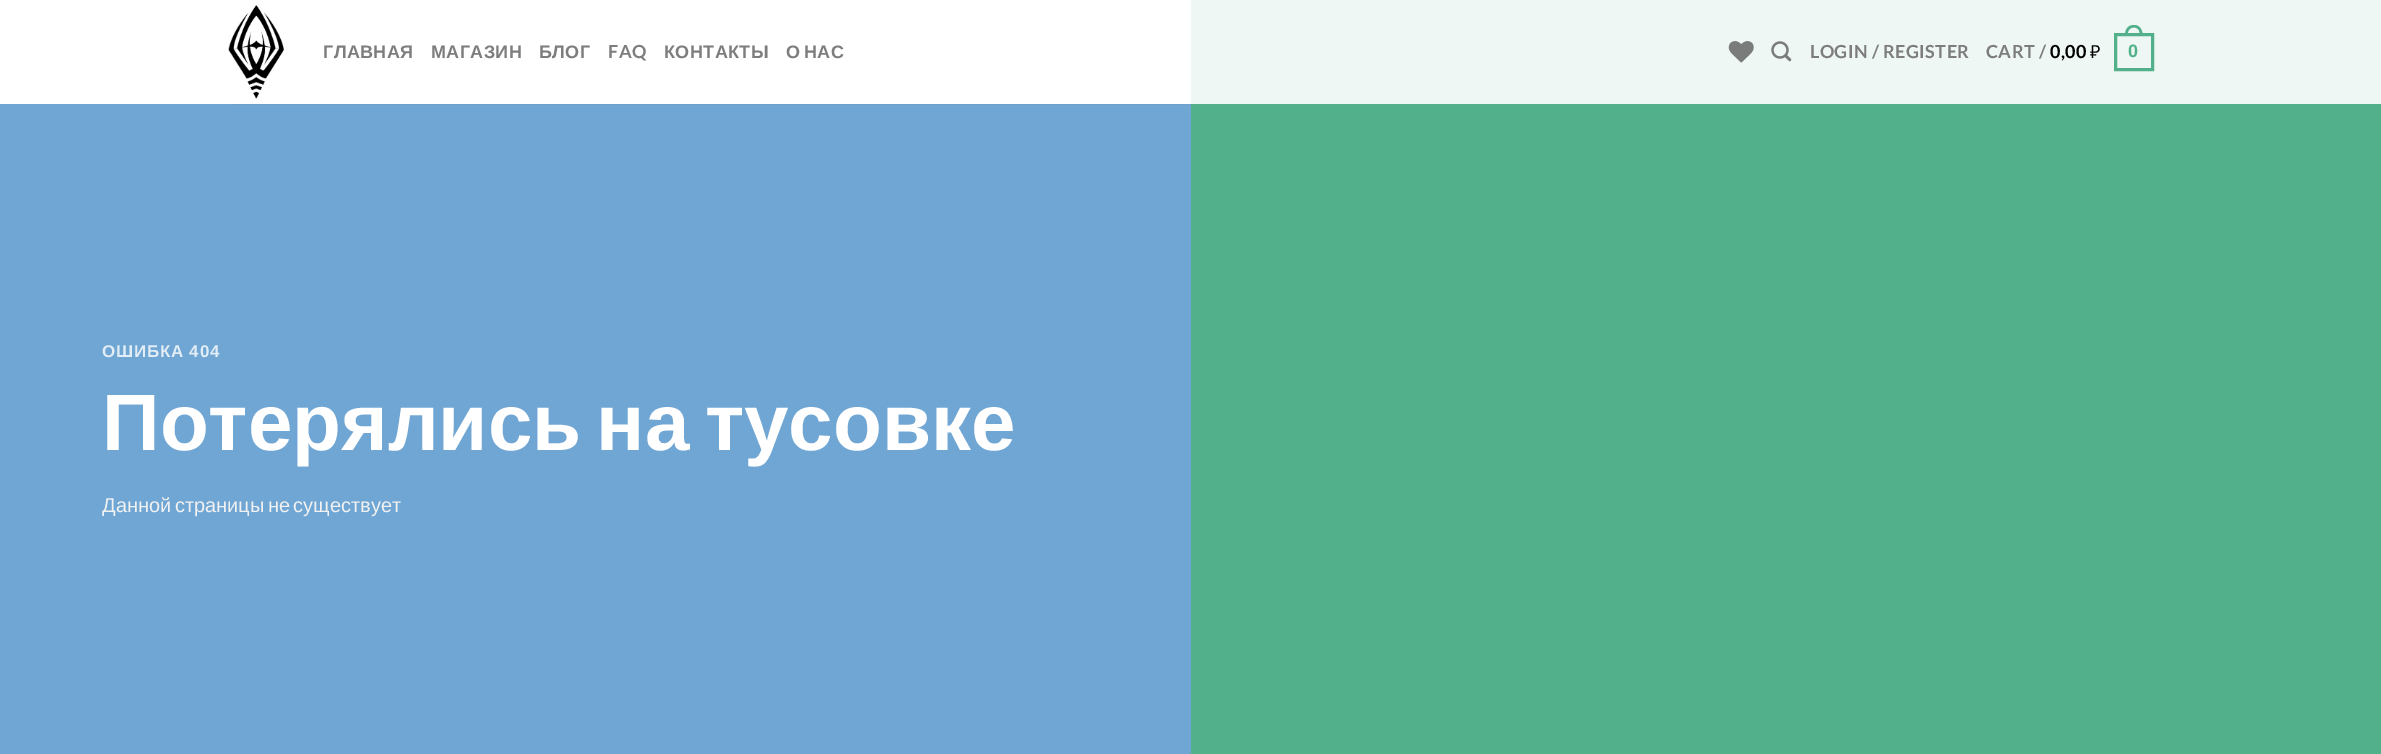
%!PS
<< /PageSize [2381 754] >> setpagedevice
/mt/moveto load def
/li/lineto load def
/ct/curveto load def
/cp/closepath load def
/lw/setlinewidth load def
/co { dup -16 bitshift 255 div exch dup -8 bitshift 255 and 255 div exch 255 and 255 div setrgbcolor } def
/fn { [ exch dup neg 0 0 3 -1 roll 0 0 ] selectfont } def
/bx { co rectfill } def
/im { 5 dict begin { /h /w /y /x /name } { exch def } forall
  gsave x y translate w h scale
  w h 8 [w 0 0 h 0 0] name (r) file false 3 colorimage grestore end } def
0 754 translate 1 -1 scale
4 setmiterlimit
0 0 2381 754 16#FFFFFF bx
(media/1.raw) 228 5 56 94 im
1191 0 1190 104 16#EEF7F3 bx
(media/2.raw) 1728 41 26 22 im
(media/3.raw) 1771 41 21 21 im
16#52B18B co
3 lw
2115.5 34.5 37 35 rectstroke
2134 25 mt 2139.5 25 2142.5 29.5 2142.5 35 ct 2125 35 li 2125 29.5 2128 25 2134 25 ct cp 2134 27.5 mt 2138 27.5 2140 31 2140 35 ct 2127.5 35 li 2127.5 31 2129.5 27.5 2134 27.5 ct cp eofill
0 104 1191 650 16#6FA6D4 bx
229 104 962 1 16#70A1CB bx
1191 104 1190 650 16#52B18B bx
1191 104 963 1 16#56AB89 bx
/LiberationSans-Bold 18 fn
16#7D7D7D co
323 58 mt .4 0 (ГЛАВНАЯ) ashow
431 58 mt .4 0 (МАГАЗИН) ashow
539 58 mt .4 0 (БЛОГ) ashow
/Lato-Bold 18 fn
608 58 mt .4 0 (FAQ) ashow
/LiberationSans-Bold 18 fn
664 58 mt .4 0 (КОНТАКТЫ) ashow
786 58 mt -2 0 32 .4 0 (О НАС) awidthshow
/Lato-Bold 18 fn
1810 58 mt .4 0 (LOGIN / REGISTER) ashow
1986 58 mt .4 0 (CART /) ashow
16#000000 co
2050 58 mt .4 0 (0,00) ashow
/NotoSans-Regular 18 fn
2090 58 mt .4 0 (₽) ashow
/LiberationSans-Bold 18 fn
16#52B18B co
2128 57 mt .4 0 (0) ashow
/LiberationSans-Bold 17 fn
16#E2EDF6 co
102 357 mt .75 0 (ОШИБКА 404) ashow
/LiberationSans-Bold 80 fn
16#FFFFFF co
102 450 mt -7 0 32 (Потерялись на тусовке) widthshow
/LiberationSans-Regular 20 fn
16#F1F1F1 co
102 512 mt -2 0 32 (Данной страницы не существует) widthshow
showpage
